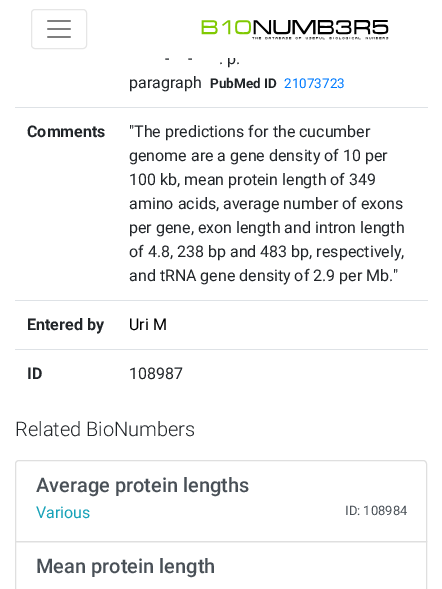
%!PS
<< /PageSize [442 589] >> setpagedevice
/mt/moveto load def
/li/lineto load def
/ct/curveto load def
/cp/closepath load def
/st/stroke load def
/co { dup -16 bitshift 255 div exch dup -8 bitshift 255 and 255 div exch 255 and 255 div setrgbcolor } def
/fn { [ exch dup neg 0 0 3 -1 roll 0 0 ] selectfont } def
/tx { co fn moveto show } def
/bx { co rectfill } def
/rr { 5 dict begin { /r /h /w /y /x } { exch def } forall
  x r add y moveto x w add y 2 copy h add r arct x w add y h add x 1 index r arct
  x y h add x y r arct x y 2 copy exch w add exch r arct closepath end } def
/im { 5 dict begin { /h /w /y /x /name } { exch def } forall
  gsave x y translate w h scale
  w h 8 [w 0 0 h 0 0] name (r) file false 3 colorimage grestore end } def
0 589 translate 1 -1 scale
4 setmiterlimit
0 0 442 589 16#FFFFFF bx
16#E6E6E6 co
31.5 9.5 55 39 3.5 rr st
(media/1.raw) 47 20 24 18 im
(media/2.raw) 201 20 188 20 im
15 107 413 1 16#DEE2E6 bx
15 300 413 1 16#DEE2E6 bx
15 349 413 1 16#DEE2E6 bx
16#DFDFDF co
19 460.5 mt 423 460.5 li 425 460.5 426.5 462 426.5 464 ct 426.5 541.5 li 15.5 541.5 li 15.5 464 li 15.5 462 17 460.5 19 460.5 ct cp st
15.5 541.5 411 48 rectstroke
(-) 165 64 /Roboto-Regular 16 16#212529 tx
(-) 188 64 /Roboto-Regular 16 16#212529 tx
(. p.) 219 64 /Roboto-Regular 16 16#212529 tx
228 55 8 3 16#FFFFFF bx
(paragraph) 129 88 /Roboto-Regular 16 16#212529 tx
(PubMed ID) 210 88 /Roboto-Bold 13.5 16#212529 tx
(21073723) 284 88 /Roboto-Regular 13.5 16#007BFF tx
(Comments) 27 137 /Roboto-Bold 16 16#212529 tx
("The predictions for the cucumber) 129 137 /Roboto-Regular 16 16#212529 tx
(genome are a gene density of 10 per) 129 161 /Roboto-Regular 16 16#212529 tx
(100 kb, mean protein length of 349) 129 185 /Roboto-Regular 16 16#212529 tx
(amino acids, average number of exons) 129 209 /Roboto-Regular 16 16#212529 tx
(per gene, exon length and intron length) 129 233 /Roboto-Regular 16 16#212529 tx
(of 4.8, 238 bp and 483 bp, respectively,) 129 257 /Roboto-Regular 16 16#212529 tx
(and tRNA gene density of 2.9 per Mb.") 129 281 /Roboto-Regular 16 16#212529 tx
(Entered by) 27 330 /Roboto-Bold 16 16#212529 tx
(Uri M) 129 330 /Roboto-Regular 16 16#000000 tx
(ID) 27 379 /Roboto-Bold 16 16#212529 tx
(108987) 129 379 /Roboto-Regular 16 16#212529 tx
(Related BioNumbers) 15 436 /Roboto-Light 20 16#212529 tx
(Average protein lengths) 36 492 /Roboto-Medium 20 16#495057 tx
(Various) 36 518 /Roboto-Regular 16 16#17A2B8 tx
(ID: 108984) 345 515 /Roboto-Regular 13 16#495057 tx
(Mean protein length) 36 573 /Roboto-Medium 20 16#495057 tx
showpage
